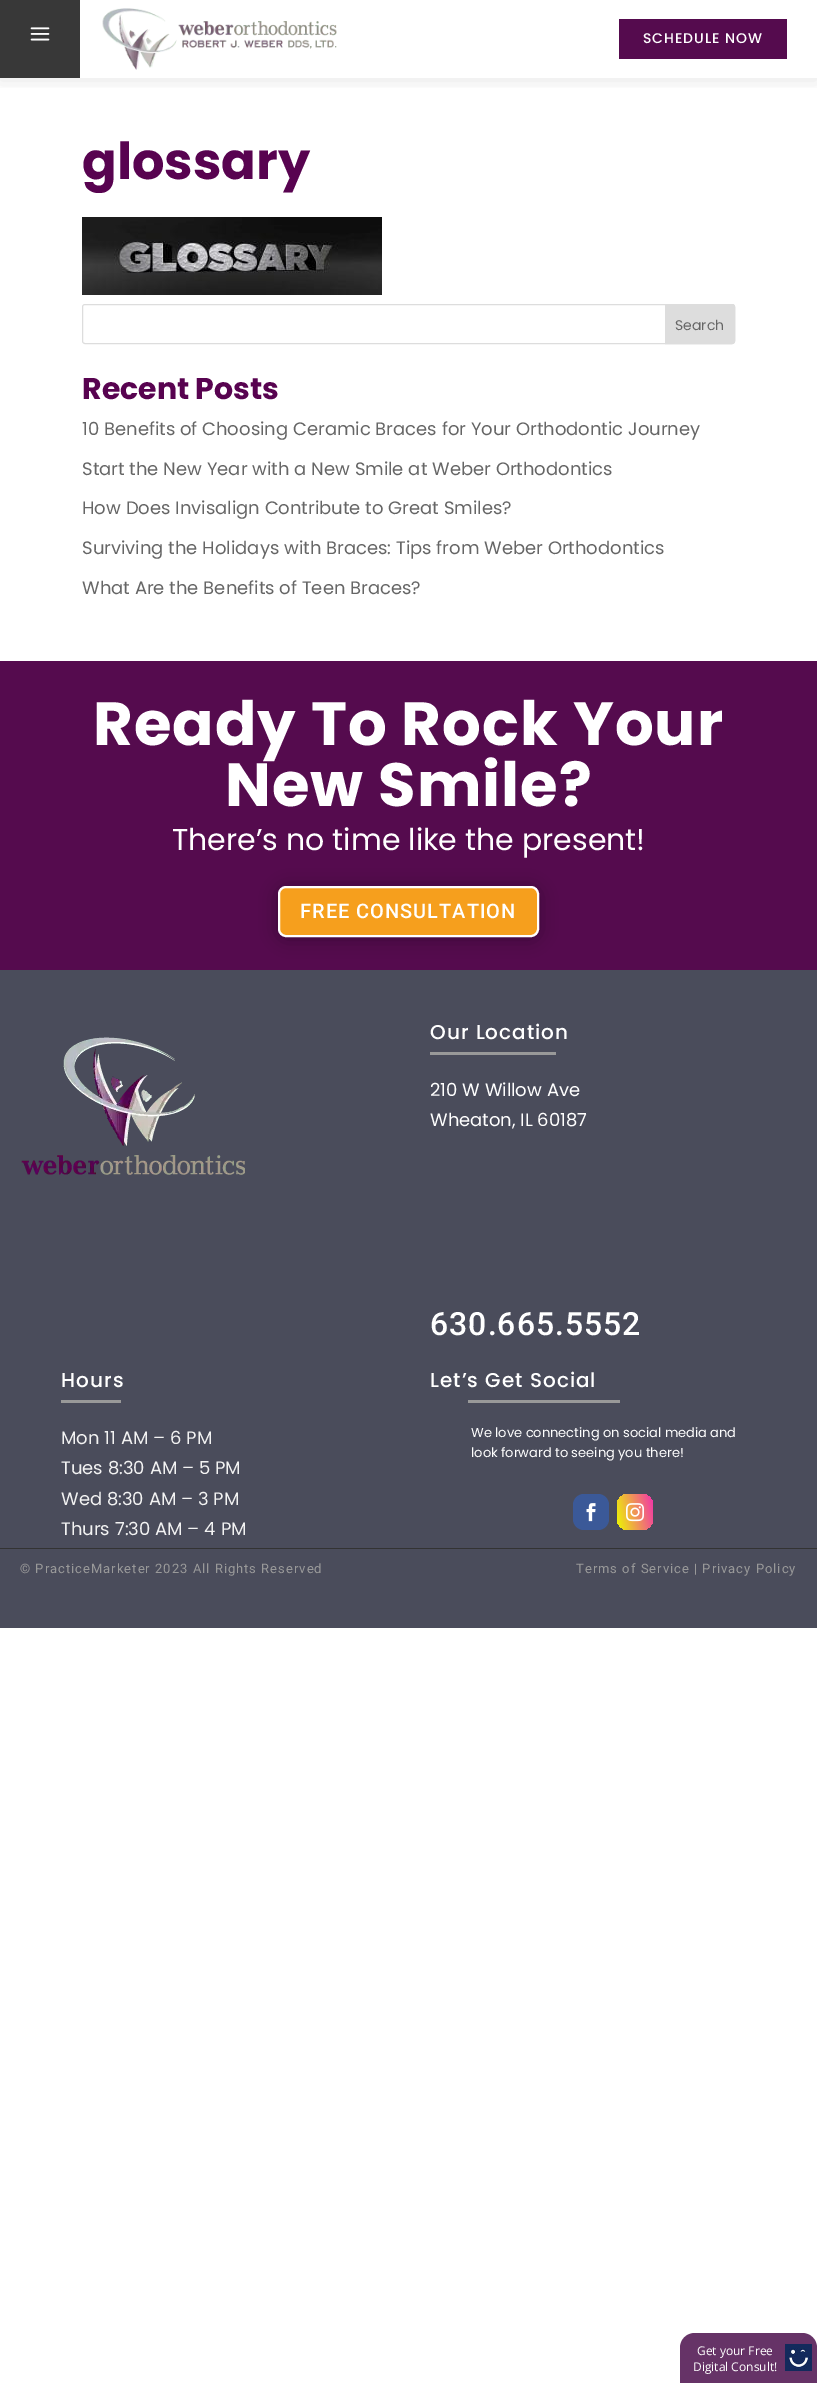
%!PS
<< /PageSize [817 2383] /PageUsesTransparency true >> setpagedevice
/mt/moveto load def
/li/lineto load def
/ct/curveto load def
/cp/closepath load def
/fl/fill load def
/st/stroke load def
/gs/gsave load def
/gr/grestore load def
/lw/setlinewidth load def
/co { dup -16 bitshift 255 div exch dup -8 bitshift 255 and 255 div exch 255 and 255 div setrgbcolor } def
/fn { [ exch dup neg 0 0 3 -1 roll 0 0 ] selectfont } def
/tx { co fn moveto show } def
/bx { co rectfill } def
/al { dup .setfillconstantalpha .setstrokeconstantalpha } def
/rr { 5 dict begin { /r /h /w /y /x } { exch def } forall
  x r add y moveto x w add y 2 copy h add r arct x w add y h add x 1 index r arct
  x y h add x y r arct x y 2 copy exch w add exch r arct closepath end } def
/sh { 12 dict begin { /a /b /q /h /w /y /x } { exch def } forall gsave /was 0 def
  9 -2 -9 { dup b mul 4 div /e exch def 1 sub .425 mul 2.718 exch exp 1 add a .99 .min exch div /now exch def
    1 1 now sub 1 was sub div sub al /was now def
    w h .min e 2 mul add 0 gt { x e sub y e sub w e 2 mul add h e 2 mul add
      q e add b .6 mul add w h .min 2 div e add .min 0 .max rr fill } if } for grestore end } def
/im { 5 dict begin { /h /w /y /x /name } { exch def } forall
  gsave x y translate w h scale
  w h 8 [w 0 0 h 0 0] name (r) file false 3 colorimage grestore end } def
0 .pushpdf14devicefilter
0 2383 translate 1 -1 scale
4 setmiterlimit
0 0 817 2383 16#FFFFFF bx
gs
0 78 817 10 rectclip
16#000000 co
0 2 817 78 0 9 .1 sh
gr
0 0 80 78 16#383838 bx
(media/1.raw) 30 27 20 14 im
(media/2.raw) 102 8 235 62 im
619 19 168 40 16#550B4E bx
(media/3.raw) 82 217 300 78 im
16#DDDDDD co
82.5 304.5 652 39 2.5 rr st
665.5 304.5 mt 732 304.5 li 733.5 304.5 734.5 305.5 734.5 307 ct 734.5 341 li 734.5 342.5 733.5 343.5 732 343.5 ct 665.5 343.5 li cp gs fl gr
st
0 661 817 309 16#550B4E bx
16#000000 co
278 888 261 51 8 9 .3 sh
16#F69F1D co
279 887 259 49 7 rr gs fl gr
16#FFFFFF co
2 lw
st
0 970 817 658 16#4A4C5B bx
(media/4.raw) 21 1037 224 138 im
430 1052 126 3 16#999999 bx
61 1400 60 3 16#999999 bx
468 1400 152 3 16#999999 bx
16#3B5998 co
573 1494 36 36 11 rr fl
(media/5.raw) 586 1503 10 19 im
gs 617 1494 36 36 11 rr clip newpath
<< /ShadingType 2 /ColorSpace /DeviceRGB /Coords [614 1517 656 1507] /Extend [true true] /Function << /FunctionType 2 /Domain [0 1] /C0 [.929 .976 0] /C1 [.949 .196 .675] /N 1 >> >> shfill gr
(media/6.raw) 626 1503 18 19 im
0 1548 817 1 16#333333 bx
16#663367 co
695 2333 mt 802 2333 li 810.5 2333 817 2339.5 817 2348 ct 817 2383 li 680 2383 li 680 2348 li 680 2339.5 686.5 2333 695 2333 ct cp fl
(media/7.raw) 785 2344 27 27 im
/Poppins-Medium 14 fn
16#FFFFFF co
643 43 mt 1 0 (SCHEDULE NOW) ashow
(glossary) 82 179 /Poppins-Bold 51 16#580350 tx
(Search) 675 330 /Poppins-Regular 14 16#666666 tx
(Recent Posts) 82 399 /Poppins-Bold 30 16#580350 tx
(10 Benefits of Choosing Ceramic Braces for Your Orthodontic Journey) 82 435 /Poppins-Regular 18 16#666666 tx
(Start the New Year with a New Smile at Weber Orthodontics) 82 475 /Poppins-Regular 18 16#666666 tx
(How Does Invisalign Contribute to Great Smiles?) 82 514 /Poppins-Regular 18 16#666666 tx
(Surviving the Holidays with Braces: Tips from Weber Orthodontics) 82 554 /Poppins-Regular 18 16#666666 tx
(What Are the Benefits of Teen Braces?) 82 594 /Poppins-Regular 18 16#666666 tx
/Poppins-Bold 61 fn
16#FFFFFF co
93 745 mt 1 0 (Ready To Rock Your) ashow
225 806 mt 1 0 (New Smile?) ashow
(There’s no time like the present!) 172 850 /Poppins-Regular 30 16#FFFFFF tx
/Roboto-Medium 20 fn
300 918 mt 1 0 (FREE CONSULTATION) ashow
/Poppins-Medium 20 fn
430 1039 mt 1 0 (Our Location) ashow
(210 W Willow Ave) 430 1096 /Poppins-Regular 18 16#FFFFFF tx
(Wheaton, IL 60187) 430 1126 /Poppins-Regular 18 16#FFFFFF tx
/Roboto-Medium 32 fn
430 1335 mt 1 0 (630.665.5552) ashow
/Poppins-Medium 20 fn
61 1387 mt 1 0 (Hours) ashow
(Mon 11 AM – 6 PM) 61 1444 /Poppins-Regular 18 16#F2F2F2 tx
(Tues 8:30 AM – 5 PM) 61 1474 /Poppins-Regular 18 16#F2F2F2 tx
(Wed 8:30 AM – 3 PM) 61 1505 /Poppins-Regular 18 16#F2F2F2 tx
(Thurs 7:30 AM – 4 PM) 61 1535 /Poppins-Regular 18 16#F2F2F2 tx
/Poppins-Medium 20 fn
16#FFFFFF co
430 1387 mt 1 0 (Let’s Get Social) ashow
(We love connecting on social media and) 471 1437 /Poppins-Regular 13 16#FFFFFF tx
(look forward to seeing you there!) 471 1457 /Poppins-Regular 13 16#FFFFFF tx
/Roboto-Regular 13 fn
16#999999 co
20 1573 mt 1 0 (© PracticeMarketer 2023 All Rights Reserved) ashow
576 1573 mt 1 0 (Terms of Service | Privacy Policy) ashow
(Get your Free) 697 2355 /OpenSans-Regular 12 16#FFFFFF tx
(Digital Consult!) 693 2371 /OpenSans-Regular 12 16#FFFFFF tx
.poppdf14devicefilter showpage
